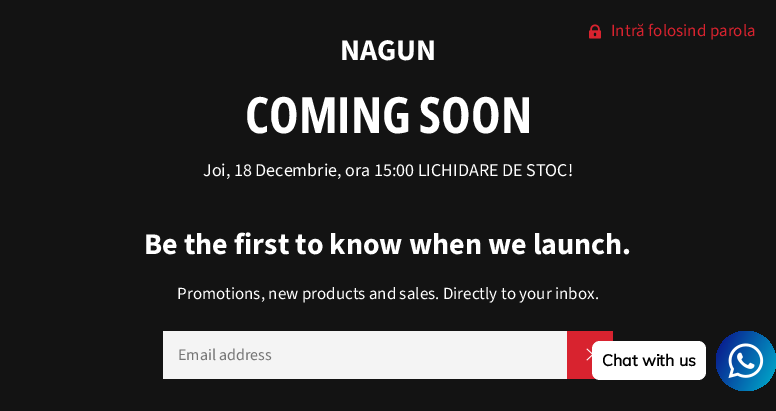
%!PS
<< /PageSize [776 411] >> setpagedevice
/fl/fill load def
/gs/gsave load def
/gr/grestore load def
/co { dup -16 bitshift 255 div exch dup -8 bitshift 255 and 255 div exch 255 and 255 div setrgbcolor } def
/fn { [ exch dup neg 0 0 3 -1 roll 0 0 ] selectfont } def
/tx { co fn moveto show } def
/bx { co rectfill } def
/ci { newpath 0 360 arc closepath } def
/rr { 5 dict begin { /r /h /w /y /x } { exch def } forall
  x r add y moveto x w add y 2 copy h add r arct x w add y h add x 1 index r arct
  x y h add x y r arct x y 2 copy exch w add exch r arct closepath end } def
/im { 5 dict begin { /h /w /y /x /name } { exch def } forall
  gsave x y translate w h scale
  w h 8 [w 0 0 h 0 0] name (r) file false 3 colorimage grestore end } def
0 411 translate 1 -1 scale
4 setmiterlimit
0 0 776 411 16#131313 bx
(media/1.raw) 589 24 12 15 im
163 331 404 48 16#F4F4F4 bx
567 331 46 48 16#D8232F bx
(media/2.raw) 586 348 6 13 im
gs 746 361 30 ci clip newpath
<< /ShadingType 2 /ColorSpace /DeviceRGB /Coords [710 344 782 378] /Extend [true true] /Function << /FunctionType 2 /Domain [0 1] /C0 [.039 .055 .533] /C1 [0 .694 .808] /N 1 >> >> shfill gr
16#FFFFFF co
592 341 114 39 8 rr fl
(media/3.raw) 728 343 36 36 im
(Intră folosind parola) 611 36 /SourceSansPro-Regular 17 16#D8232F tx
(NAGUN) 340 60 /SourceSansPro-Bold 30 16#FFFFFF tx
(COMING SOON) 245 133 /OpenSansCondensed-Bold 50 16#FFFFFF tx
(Joi, 18 Decembrie, ora 15:00 LICHIDARE DE STOC!) 203 176 /SourceSansPro-Regular 18 16#FFFFFF tx
(Be the first to know when we launch.) 144 254 /SourceSansPro-Bold 30 16#FFFFFF tx
(Promotions, new products and sales. Directly to your inbox.) 177 299 /SourceSansPro-Regular 17 16#FFFFFF tx
(Email address) 178 360 /SourceSansPro-Regular 16 16#767676 tx
(Chat with us) 602 366 /Muli-Bold 16 16#000000 tx
showpage
